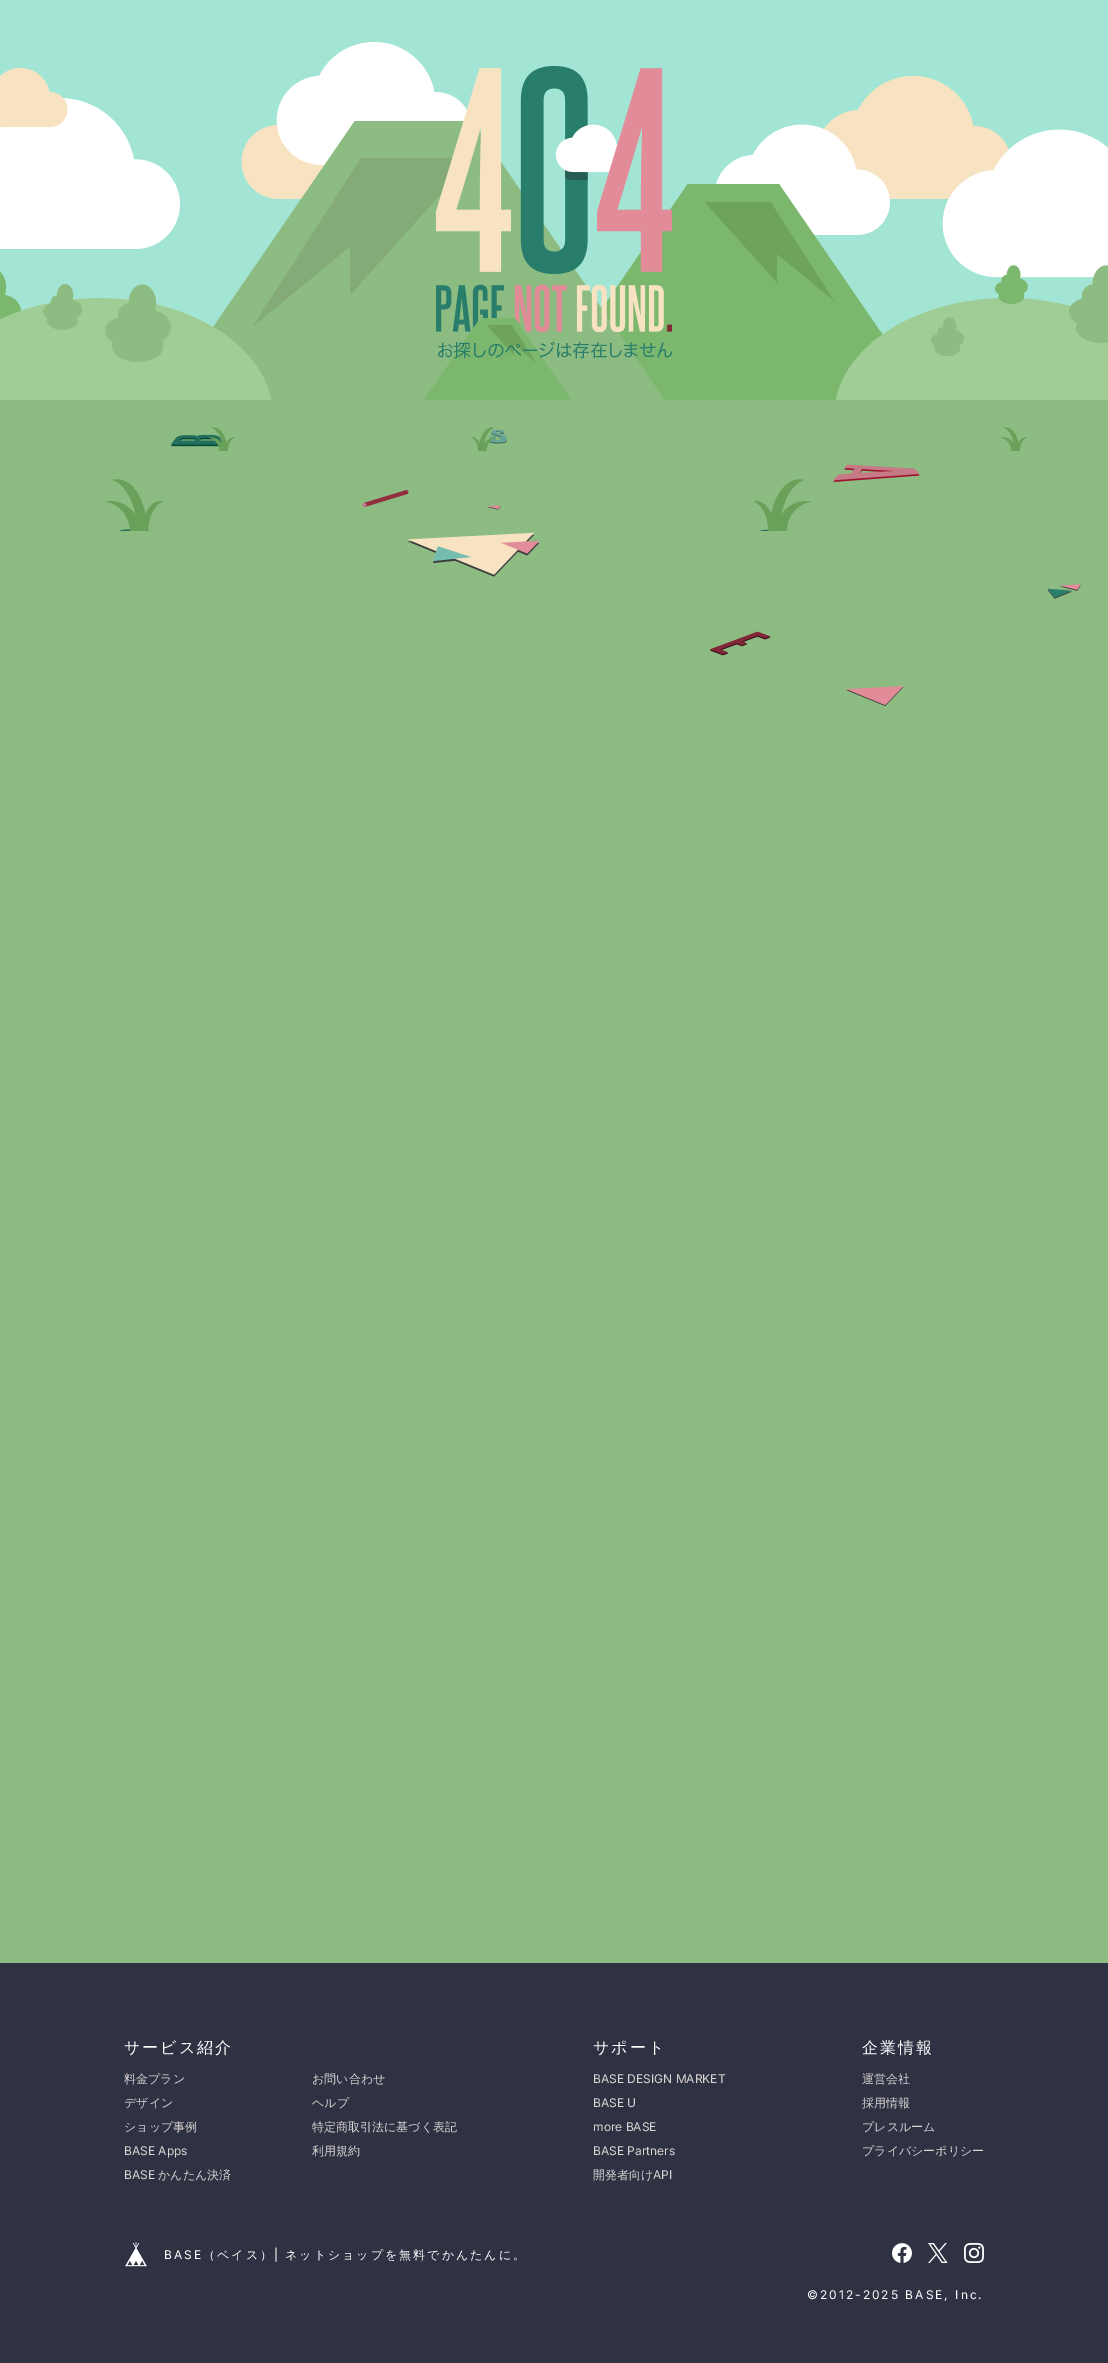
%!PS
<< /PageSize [1108 2363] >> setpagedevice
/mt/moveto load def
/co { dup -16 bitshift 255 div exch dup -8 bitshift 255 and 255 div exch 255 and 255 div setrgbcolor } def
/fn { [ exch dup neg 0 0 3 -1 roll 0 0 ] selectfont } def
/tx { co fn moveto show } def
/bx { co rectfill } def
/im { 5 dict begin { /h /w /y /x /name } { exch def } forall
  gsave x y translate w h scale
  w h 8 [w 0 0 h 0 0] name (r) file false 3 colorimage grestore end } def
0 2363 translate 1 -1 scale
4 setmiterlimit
0 0 1108 2363 16#8DBC82 bx
0 0 1108 42 16#A3E5D4 bx
(media/1.raw) 0 42 1108 358 im
(media/2.raw) 105 427 976 280 im
0 1963 1108 400 16#2E3242 bx
(media/3.raw) 125 2242 22 25 im
(media/4.raw) 892 2243 20 20 im
(media/5.raw) 928 2243 20 20 im
(media/6.raw) 964 2243 20 20 im
/WenQuanYiZenHei-Medium 16 fn
16#FFFFFF co
124 2053 mt 2 0 (サービス紹介) ashow
(料金プラン) 124 2083 /WenQuanYiZenHei-Medium 12 16#DBD4D4 tx
(デザイン) 124 2107 /WenQuanYiZenHei-Medium 12 16#DBD4D4 tx
(ショップ事例) 124 2131 /WenQuanYiZenHei-Medium 12 16#DBD4D4 tx
(BASE Apps) 124 2155 /Inter-Regular 12 16#DBD4D4 tx
(BASE) 124 2179 /Inter-Regular 12 16#DBD4D4 tx
(かんたん決済) 158 2179 /WenQuanYiZenHei-Medium 12 16#DBD4D4 tx
(お問い合わせ) 312 2083 /WenQuanYiZenHei-Medium 12 16#DBD4D4 tx
(ヘルプ) 312 2107 /WenQuanYiZenHei-Medium 12 16#DBD4D4 tx
(特定商取引法に基づく表記) 312 2131 /WenQuanYiZenHei-Medium 12 16#DBD4D4 tx
(利用規約) 312 2155 /WenQuanYiZenHei-Medium 12 16#DBD4D4 tx
/WenQuanYiZenHei-Medium 16 fn
16#FFFFFF co
593 2053 mt 2 0 (サポート) ashow
(BASE DESIGN MARKET) 593 2083 /Inter-Regular 12 16#DBD4D4 tx
(BASE U) 593 2107 /Inter-Regular 12 16#DBD4D4 tx
(more BASE) 593 2131 /Inter-Regular 12 16#DBD4D4 tx
(BASE Partners) 593 2155 /Inter-Regular 12 16#DBD4D4 tx
(開発者向け) 593 2179 /WenQuanYiZenHei-Medium 12 16#DBD4D4 tx
(API) 653 2179 /Inter-Regular 12 16#DBD4D4 tx
/WenQuanYiZenHei-Medium 16 fn
16#FFFFFF co
862 2053 mt 2 0 (企業情報) ashow
(運営会社) 862 2083 /WenQuanYiZenHei-Medium 12 16#DBD4D4 tx
(採用情報) 862 2107 /WenQuanYiZenHei-Medium 12 16#DBD4D4 tx
(プレスルーム) 862 2131 /WenQuanYiZenHei-Medium 12 16#DBD4D4 tx
(プライバシーポリシー) 862 2155 /WenQuanYiZenHei-Medium 12 16#DBD4D4 tx
/Inter-Regular 12 fn
16#FFFFFF co
164 2259 mt 2 0 (BASE) ashow
/WenQuanYiZenHei-Medium 12 fn
203 2259 mt 2 0 (（ベイス）) ashow
/Inter-Regular 12 fn
274 2259 mt 2 0 (|) ashow
/WenQuanYiZenHei-Medium 12 fn
285 2259 mt 2 0 (ネットショップを無料でかんたんに。) ashow
/Inter-Regular 12 fn
807 2299 mt 2 0 (©2012-2025 BASE, Inc.) ashow
showpage
